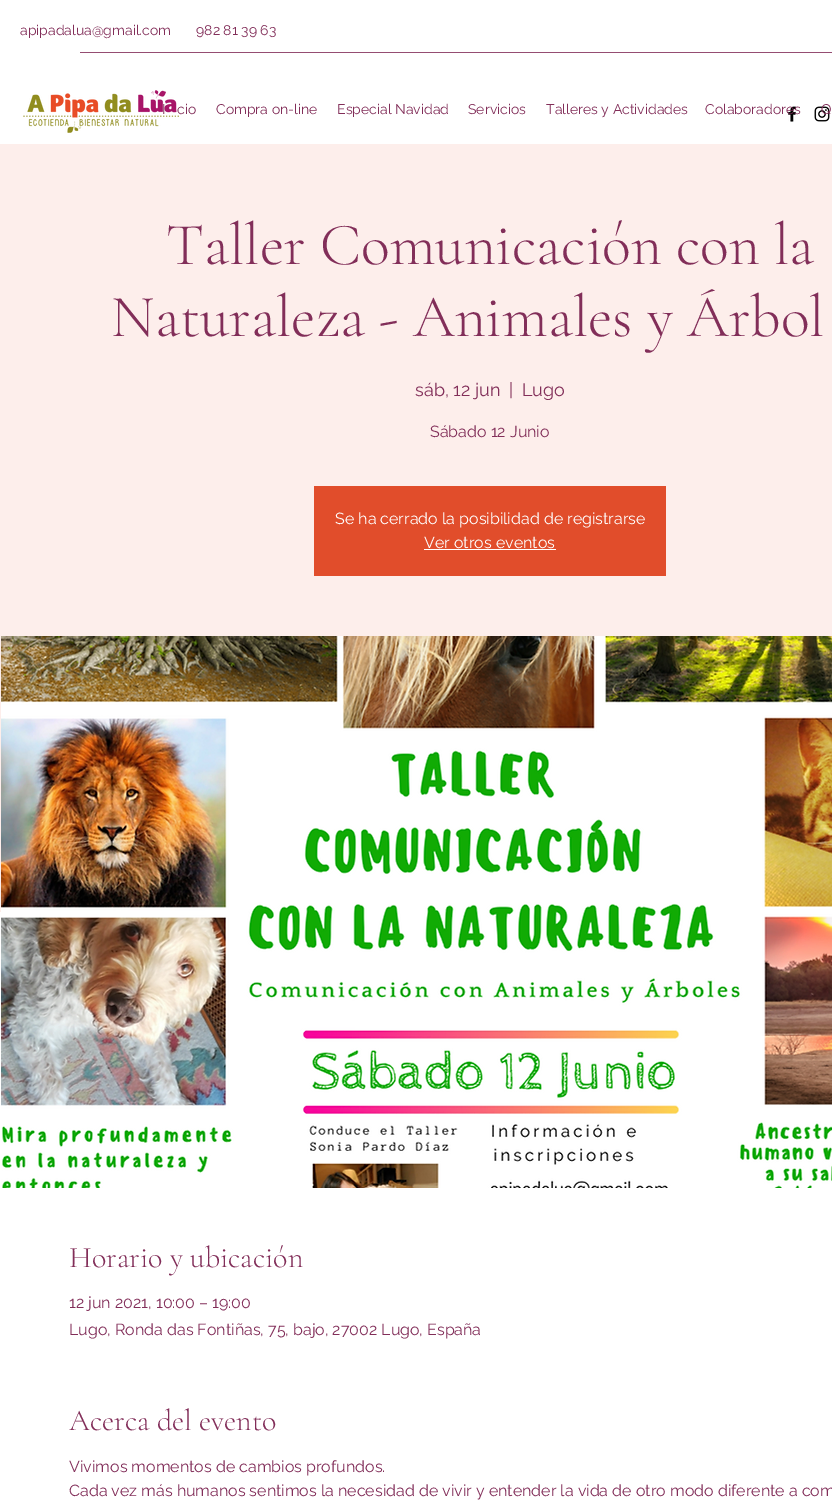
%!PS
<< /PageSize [832 1510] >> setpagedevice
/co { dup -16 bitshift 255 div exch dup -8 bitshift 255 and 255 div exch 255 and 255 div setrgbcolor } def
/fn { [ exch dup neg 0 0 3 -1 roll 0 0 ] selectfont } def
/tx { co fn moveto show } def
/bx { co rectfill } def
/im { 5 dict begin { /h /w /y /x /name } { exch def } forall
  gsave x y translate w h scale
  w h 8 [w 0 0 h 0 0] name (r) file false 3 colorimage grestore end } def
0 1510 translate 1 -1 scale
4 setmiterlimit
0 0 832 1510 16#FFFFFF bx
80 52 752 1 16#954D72 bx
(media/1.raw) 23 90 156 43 im
(media/2.raw) 788 106 9 16 im
(media/3.raw) 814 106 16 16 im
0 144 832 768 16#FDEEEB bx
314 486 352 90 16#E14D2B bx
424 549 132 1 16#FFFFFF bx
(media/4.raw) 1 636 831 552 im
(apipadalua@gmail.com) 20 35 /Raleway-Regular 14 16#822E59 tx
(982 81 39 63) 196 35 /Raleway-Regular 14 16#822E59 tx
(I) 162 114 /Raleway-Regular 14 16#822E59 tx
(cio) 177 114 /Raleway-Regular 14 16#822E59 tx
(Compra on-line) 216 114 /Raleway-Regular 14 16#822E59 tx
(Especial Navidad) 337 114 /Raleway-Regular 14 16#822E59 tx
(Servicios) 468 114 /Raleway-Regular 14 16#822E59 tx
(Talleres y Actividades) 546 114 /Raleway-Regular 14 16#822E59 tx
(Colaboradores) 705 114 /Raleway-Regular 14 16#822E59 tx
(Q) 821 114 /Raleway-Regular 14 16#822E59 tx
(Taller Comunicación con la) 166 264 /CormorantGaramond-Light 60 16#822E59 tx
(Naturaleza - Animales y Árbol) 111 336 /CormorantGaramond-Light 60 16#822E59 tx
(sáb, 12 jun) 415 396 /Raleway-Regular 18 16#822E59 tx
(|) 509 396 /Raleway-Regular 18 16#822E59 tx
(Lugo) 522 396 /Raleway-Regular 18 16#822E59 tx
(Sábado 12 Junio) 430 437 /Raleway-Regular 16 16#822E59 tx
(Se ha cerrado la posibilidad de registrarse) 335 524 /Raleway-Regular 16 16#FFFFFF tx
(Ver otros eventos) 424 548 /Raleway-Regular 16 16#FFFFFF tx
(Horario y ubicación) 69 1267 /CormorantGaramond-Light 30 16#822E59 tx
(12 jun 2021, 10:00 – 19:00) 69 1308 /Raleway-Regular 16 16#822E59 tx
(Lugo, Ronda das Fontiñas, 75, bajo, 27002 Lugo, España) 69 1335 /Raleway-Regular 16 16#822E59 tx
(Acerca del evento) 69 1430 /CormorantGaramond-Light 30 16#822E59 tx
(Vivimos momentos de cambios profundos.) 69 1472 /Raleway-Regular 16 16#822E59 tx
(Cada vez más humanos sentimos la necesidad de vivir y entender la vida de otro modo diferente a com) 69 1496 /Raleway-Regular 16 16#822E59 tx
showpage
